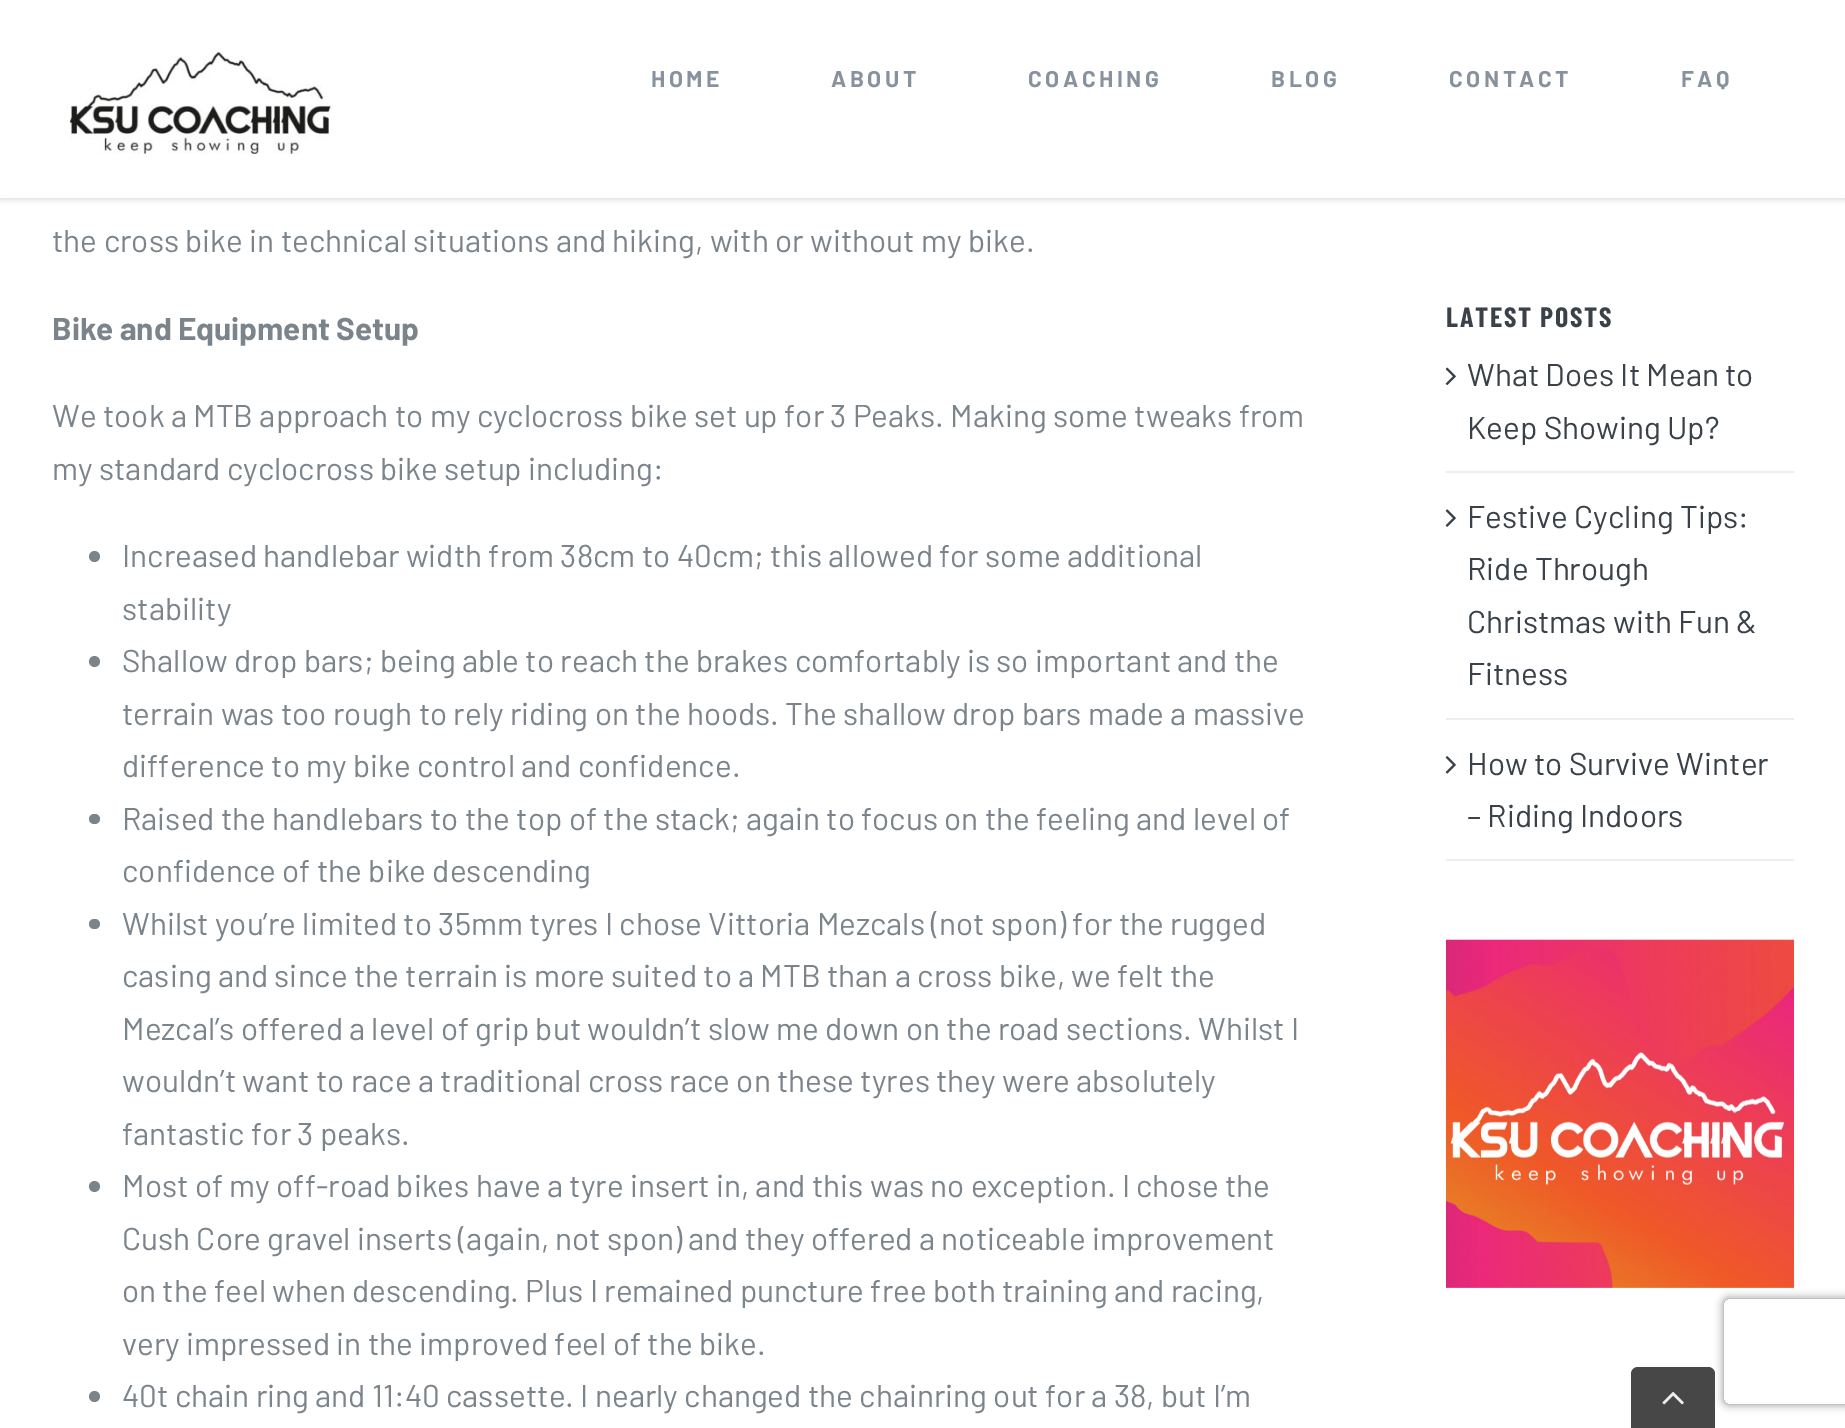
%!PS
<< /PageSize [1845 1428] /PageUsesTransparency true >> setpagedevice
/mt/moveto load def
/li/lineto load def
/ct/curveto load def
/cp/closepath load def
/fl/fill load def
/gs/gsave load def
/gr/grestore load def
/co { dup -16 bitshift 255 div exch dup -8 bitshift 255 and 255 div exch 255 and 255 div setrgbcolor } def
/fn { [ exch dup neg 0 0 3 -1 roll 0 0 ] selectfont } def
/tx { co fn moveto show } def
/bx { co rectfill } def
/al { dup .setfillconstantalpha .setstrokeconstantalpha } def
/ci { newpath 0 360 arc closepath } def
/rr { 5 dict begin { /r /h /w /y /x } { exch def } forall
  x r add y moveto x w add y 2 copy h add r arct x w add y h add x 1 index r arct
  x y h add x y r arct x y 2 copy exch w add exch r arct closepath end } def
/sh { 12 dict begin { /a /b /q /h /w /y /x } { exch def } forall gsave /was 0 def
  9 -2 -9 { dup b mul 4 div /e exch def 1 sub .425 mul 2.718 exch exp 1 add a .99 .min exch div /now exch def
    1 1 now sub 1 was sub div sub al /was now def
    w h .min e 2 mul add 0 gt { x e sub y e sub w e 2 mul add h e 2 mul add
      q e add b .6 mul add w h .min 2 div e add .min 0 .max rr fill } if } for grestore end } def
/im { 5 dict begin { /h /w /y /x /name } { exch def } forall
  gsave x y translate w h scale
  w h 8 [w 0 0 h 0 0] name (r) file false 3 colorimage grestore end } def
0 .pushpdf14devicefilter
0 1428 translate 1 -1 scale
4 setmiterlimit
0 0 1845 1428 16#FFFFFF bx
16#000000 co
0 2 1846 198 0 2.5 .12 sh
0 0 1845 198 16#FFFFFF bx
(media/1.raw) 70 49 263 106 im
16#7B838B co
94.5 556.5 5.5 ci fl
94.5 661.5 5.5 ci fl
89 814 11 10 5 rr fl
89 919 11 10 5 rr fl
94.5 1186.5 5.5 ci fl
94.5 1396.5 5.5 ci fl
1446 471 348 2 16#EEEEEE bx
(media/2.raw) 1445 367 11 19 im
1446 718 348 2 16#EEEEEE bx
(media/3.raw) 1445 509 11 18 im
1446 859 348 2 16#EEEEEE bx
(media/4.raw) 1445 756 11 18 im
(media/5.raw) 1446 939 348 349 im
gs
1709 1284 mt 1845 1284 li 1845 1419 li 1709 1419 li cp 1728 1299 mt 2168 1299 li 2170 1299 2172 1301 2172 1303 ct 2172 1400 li 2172 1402 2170 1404 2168 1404 ct 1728 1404 li 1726 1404 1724 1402 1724 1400 ct 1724 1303 li 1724 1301 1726 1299 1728 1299 ct cp eoclip newpath
16#808080 co
1724 1299 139 105 4 4.5 1 sh
gr
16#474747 co
1638 1367 mt 1708 1367 li 1712 1367 1715 1370 1715 1374 ct 1715 1428 li 1631 1428 li 1631 1374 li 1631 1370 1634 1367 1638 1367 ct cp fl
(media/6.raw) 1662 1392 22 13 im
/Barlow-Bold 22.75 fn
16#88929E co
651 87 mt 3.5 0 (HOME) ashow
831 87 mt 3.5 0 (ABOUT) ashow
1028 87 mt 3.5 0 (COACHING) ashow
1271 87 mt 3.5 0 (BLOG) ashow
1449 87 mt 3.5 0 (CONTACT) ashow
1681 87 mt 3.5 0 (FAQ) ashow
(the cross bike in technical situations and hiking, with or without my bike.) 52 252 /Barlow-Regular 31.5 16#7B838B tx
(Bike and Equipment Setup) 52 340 /Barlow-Bold 31.5 16#7B838B tx
(We took a MTB approach to my cyclocross bike set up for 3 Peaks. Making some tweaks from) 52 427 /Barlow-Regular 31.5 16#7B838B tx
(my standard cyclocross bike setup including:) 52 480 /Barlow-Regular 31.5 16#7B838B tx
(Increased handlebar width from 38cm to 40cm; this allowed for some additional) 122 567 /Barlow-Regular 31.5 16#7B838B tx
(stability) 122 620 /Barlow-Regular 31.5 16#7B838B tx
(Shallow drop bars; being able to reach the brakes comfortably is so important and the) 122 672 /Barlow-Regular 31.5 16#7B838B tx
(terrain was too rough to rely riding on the hoods. The shallow drop bars made a massive) 122 725 /Barlow-Regular 31.5 16#7B838B tx
(difference to my bike control and confidence.) 122 777 /Barlow-Regular 31.5 16#7B838B tx
(Raised the handlebars to the top of the stack; again to focus on the feeling and level of) 122 830 /Barlow-Regular 31.5 16#7B838B tx
(confidence of the bike descending) 122 882 /Barlow-Regular 31.5 16#7B838B tx
(Whilst you’re limited to 35mm tyres I chose Vittoria Mezcals \(not spon\) for the rugged) 122 935 /Barlow-Regular 31.5 16#7B838B tx
(casing and since the terrain is more suited to a MTB than a cross bike, we felt the) 122 987 /Barlow-Regular 31.5 16#7B838B tx
(Mezcal’s offered a level of grip but wouldn’t slow me down on the road sections. Whilst I) 122 1040 /Barlow-Regular 31.5 16#7B838B tx
(wouldn’t want to race a traditional cross race on these tyres they were absolutely) 122 1092 /Barlow-Regular 31.5 16#7B838B tx
(fantastic for 3 peaks.) 122 1145 /Barlow-Regular 31.5 16#7B838B tx
(Most of my off-road bikes have a tyre insert in, and this was no exception. I chose the) 122 1197 /Barlow-Regular 31.5 16#7B838B tx
(Cush Core gravel inserts \(again, not spon\) and they offered a noticeable improvement) 122 1250 /Barlow-Regular 31.5 16#7B838B tx
(on the feel when descending. Plus I remained puncture free both training and racing,) 122 1302 /Barlow-Regular 31.5 16#7B838B tx
(very impressed in the improved feel of the bike.) 122 1355 /Barlow-Regular 31.5 16#7B838B tx
(40t chain ring and 11:40 cassette. I nearly changed the chainring out for a 38, but I’m) 122 1407 /Barlow-Regular 31.5 16#7B838B tx
/BarlowCondensed-Bold 28 fn
16#3A4149 co
1446 327 mt 1.75 0 (LATEST POSTS) ashow
(What Does It Mean to) 1467 386 /Barlow-Regular 31.5 16#3A4149 tx
(Keep Showing Up?) 1467 439 /Barlow-Regular 31.5 16#3A4149 tx
(Festive Cycling Tips:) 1467 528 /Barlow-Regular 31.5 16#3A4149 tx
(Ride Through) 1467 580 /Barlow-Regular 31.5 16#3A4149 tx
(Christmas with Fun &) 1467 633 /Barlow-Regular 31.5 16#3A4149 tx
(Fitness) 1467 685 /Barlow-Regular 31.5 16#3A4149 tx
(How to Survive Winter) 1467 775 /Barlow-Regular 31.5 16#3A4149 tx
(– Riding Indoors) 1467 827 /Barlow-Regular 31.5 16#3A4149 tx
.poppdf14devicefilter showpage
